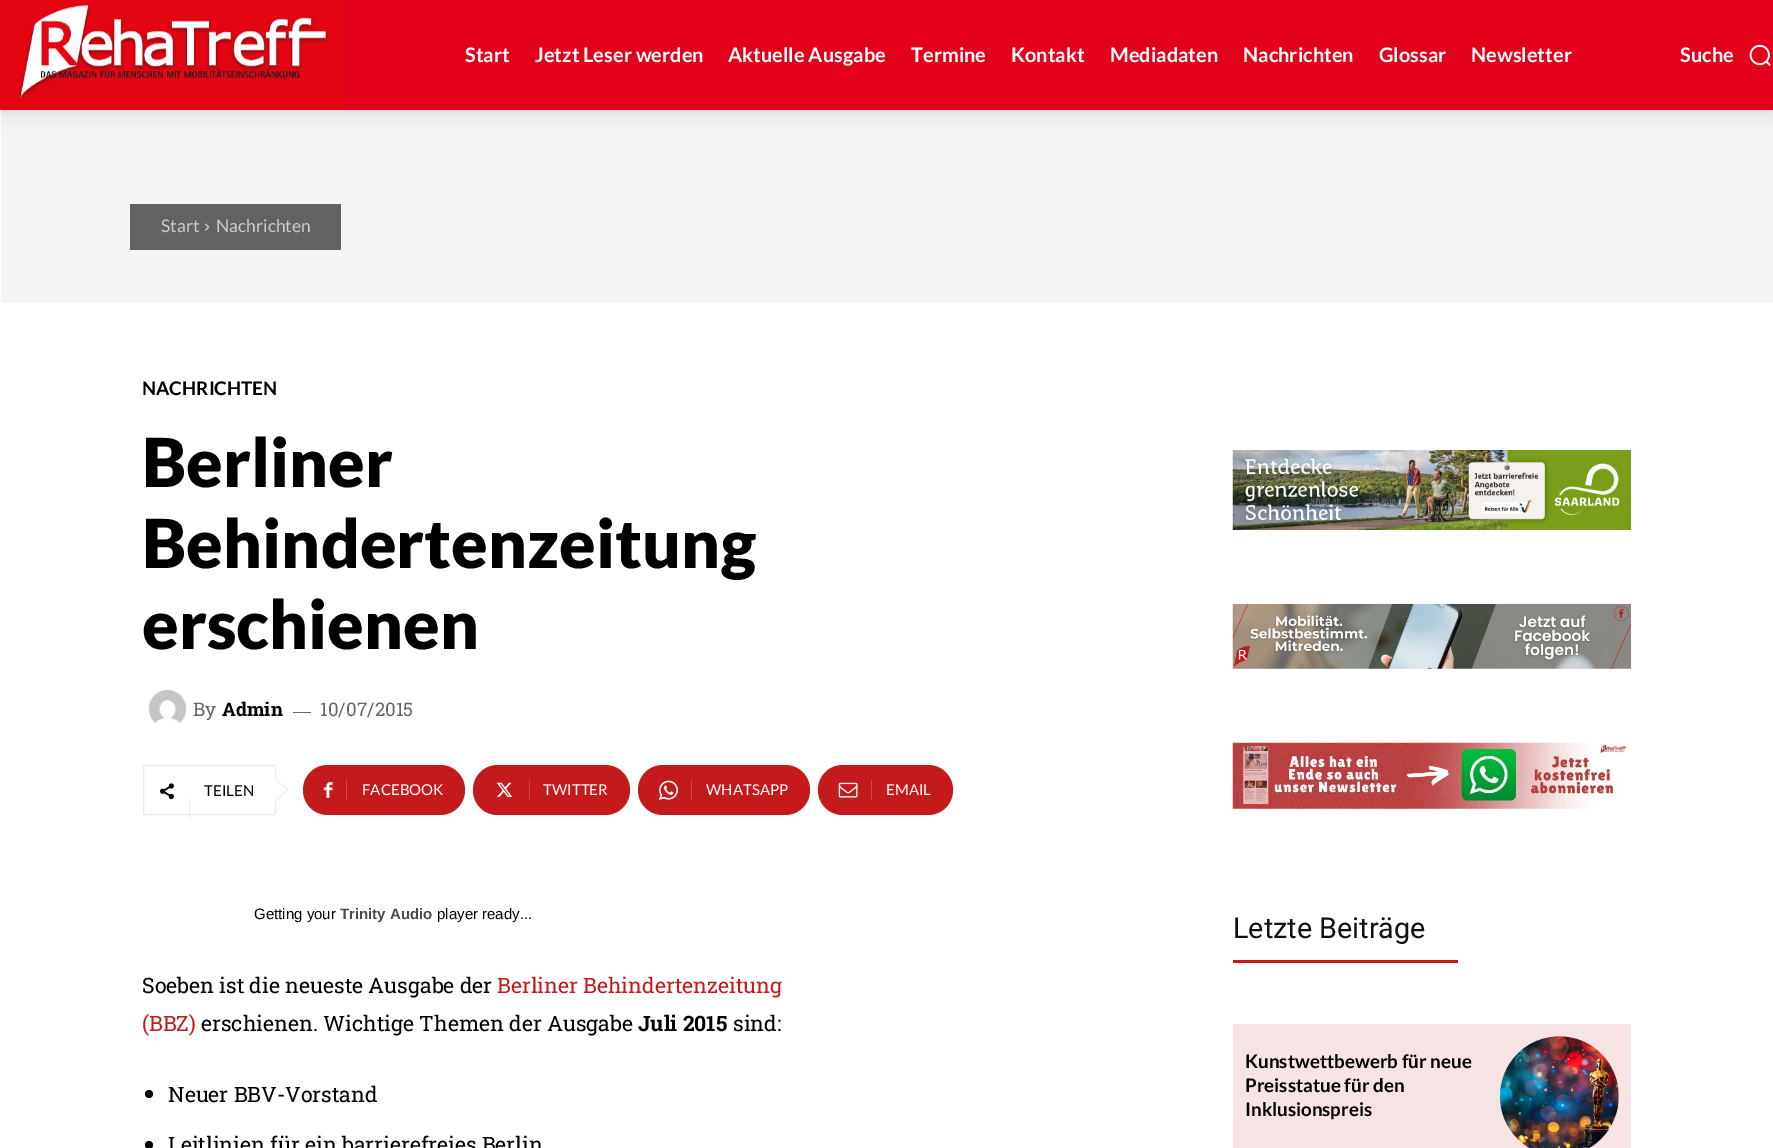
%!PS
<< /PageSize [1773 1148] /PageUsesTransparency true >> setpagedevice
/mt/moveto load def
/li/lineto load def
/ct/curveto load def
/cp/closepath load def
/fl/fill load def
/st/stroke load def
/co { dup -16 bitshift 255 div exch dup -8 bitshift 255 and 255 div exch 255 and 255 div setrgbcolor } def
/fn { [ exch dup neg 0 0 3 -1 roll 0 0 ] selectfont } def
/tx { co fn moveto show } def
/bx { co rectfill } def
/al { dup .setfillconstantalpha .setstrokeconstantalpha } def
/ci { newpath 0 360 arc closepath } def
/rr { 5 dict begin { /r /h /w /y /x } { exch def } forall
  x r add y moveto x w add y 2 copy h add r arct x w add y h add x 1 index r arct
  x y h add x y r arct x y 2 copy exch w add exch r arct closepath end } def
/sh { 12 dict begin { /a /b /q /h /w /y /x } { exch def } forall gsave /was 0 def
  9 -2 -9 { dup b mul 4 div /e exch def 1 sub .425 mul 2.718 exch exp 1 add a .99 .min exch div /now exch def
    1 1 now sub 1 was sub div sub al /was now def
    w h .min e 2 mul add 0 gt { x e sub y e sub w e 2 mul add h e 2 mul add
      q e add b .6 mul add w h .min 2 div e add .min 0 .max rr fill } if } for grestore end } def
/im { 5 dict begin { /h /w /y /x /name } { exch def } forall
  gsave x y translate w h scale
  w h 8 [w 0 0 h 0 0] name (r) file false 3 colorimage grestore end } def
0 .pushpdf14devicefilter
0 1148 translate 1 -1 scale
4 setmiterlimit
0 0 1773 1148 16#FFFFFF bx
1 110 1772 193 16#F5F5F5 bx
16#000000 co
0 0 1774 110 0 10 .16 sh
1 0 1772 110 16#E2001A bx
(media/1.raw) 0 0 344 110 im
(media/2.raw) 1749 44 22 22 im
130 204 211 46 16#626262 bx
(media/3.raw) 205 223 5 8 im
(media/4.raw) 148 690 39 33 im
293 712 18 1 16#666666 bx
16#E9E9E9 co
143.5 765.5 132 49 2 rr st
275 801 mt 275 779 li 289 790 li cp fl
(media/5.raw) 160 783 14 17 im
0.08 al
189 799 1 20 16#000000 bx
1 al
16#FFFFFF co
275 800 mt 275 780 li 287.5 790 li cp fl
16#C51A1B co
346 765 mt 440 765 li 454 765 465 776 465 790 ct 465 804 454 815 440 815 ct 346 815 li cp fl
328 765 mt 354 765 li 354 815 li 328 815 li 314 815 303 804 303 790 ct 303 776 314 765 328 765 ct cp fl
(media/6.raw) 323 782 10 16 im
346 780 1 20 16#D14849 bx
16#C51A1B co
529 765 mt 605 765 li 619 765 630 776 630 790 ct 630 804 619 815 605 815 ct 529 815 li cp fl
498 765 mt 536 765 li 536 815 li 498 815 li 484 815 473 804 473 790 ct 473 776 484 765 498 765 ct cp fl
(media/7.raw) 496 782 17 15 im
529 780 1 20 16#D14849 bx
16#C51A1B co
691 765 mt 785 765 li 799 765 810 776 810 790 ct 810 804 799 815 785 815 ct 691 815 li cp fl
663 765 mt 699 765 li 699 815 li 663 815 li 649 815 638 804 638 790 ct 638 776 649 765 663 765 ct cp fl
(media/8.raw) 658 780 20 20 im
691 780 1 20 16#D14849 bx
16#C51A1B co
871 765 mt 928 765 li 942 765 953 776 953 790 ct 953 804 942 815 928 815 ct 871 815 li cp fl
843 765 mt 879 765 li 879 815 li 843 815 li 829 815 818 804 818 790 ct 818 776 829 765 843 765 ct cp fl
(media/9.raw) 838 782 20 16 im
871 780 1 20 16#D14849 bx
16#000000 co
149 1094 4 ci fl
149 1145 4 ci fl
(media/10.raw) 1232 450 400 80 im
(media/11.raw) 1232 603 400 66 im
(media/12.raw) 1232 742 395 67 im
1233 960 225 3 16#C51A1B bx
1233 1024 398 124 16#F6E4E5 bx
(media/13.raw) 1500 1036 119 112 im
(Start) 465 62 /Lato-Bold 20 16#FFFFFF tx
(Jetzt Leser werden) 535 62 /Lato-Bold 20 16#FFFFFF tx
(Aktuelle Ausgabe) 728 62 /Lato-Bold 20 16#FFFFFF tx
(Termine) 911 62 /Lato-Bold 20 16#FFFFFF tx
(Kontakt) 1011 62 /Lato-Bold 20 16#FFFFFF tx
(Mediadaten) 1110 62 /Lato-Bold 20 16#FFFFFF tx
(Nachrichten) 1243 62 /Lato-Bold 20 16#FFFFFF tx
(Glossar) 1379 62 /Lato-Bold 20 16#FFFFFF tx
(Newsletter) 1471 62 /Lato-Bold 20 16#FFFFFF tx
(Suche) 1680 62 /Lato-Bold 20 16#FFFFFF tx
(Start) 161 232 /Lato-Regular 17.5 16#CCCCCC tx
(Nachrichten) 216 232 /Lato-Regular 17.5 16#CCCCCC tx
(NACHRICHTEN) 142 395 /Lato-Bold 18.75 16#000000 tx
(Berliner) 142 487 /Lato-Black 67.5 16#000000 tx
(Behindertenzeitung) 142 568 /Lato-Black 67.5 16#000000 tx
(erschienen) 142 649 /Lato-Black 67.5 16#000000 tx
(By) 193 716 /RobotoSlab-Regular 18.75 16#666666 tx
(Admin) 222 716 /RobotoSlab-Bold 18.75 16#000000 tx
(10/07/2015) 320 716 /RobotoSlab-Regular 18.75 16#666666 tx
(TEILEN) 204 796 /Lato-Regular 15 16#000000 tx
(FACEBOOK) 362 795 /Lato-Regular 15 16#FFFFFF tx
(TWITTER) 543 795 /Lato-Regular 15 16#FFFFFF tx
(WHATSAPP) 706 795 /Lato-Regular 15 16#FFFFFF tx
(EMAIL) 886 795 /Lato-Regular 15 16#FFFFFF tx
(Getting your) 254 919 /LiberationSans-Regular 15 16#000000 tx
(Trinity Audio) 340 919 /LiberationSans-Bold 15 16#4B4A4A tx
(player ready...) 437 919 /LiberationSans-Regular 15 16#000000 tx
(Soeben ist die neueste Ausgabe der) 142 993 /RobotoSlab-Regular 21.25 16#000000 tx
(Berliner Behindertenzeitung) 497 993 /RobotoSlab-Regular 21.25 16#C51A1B tx
(\(BBZ\)) 142 1031 /RobotoSlab-Regular 21.25 16#C51A1B tx
(erschienen. Wichtige Themen der Ausgabe) 201 1031 /RobotoSlab-Regular 21.25 16#000000 tx
(Juli 2015) 638 1031 /RobotoSlab-Bold 21.25 16#000000 tx
(sind:) 733 1031 /RobotoSlab-Regular 21.25 16#000000 tx
(Neuer BBV-Vorstand) 168 1102 /RobotoSlab-Regular 21.25 16#000000 tx
(Leitlinien für ein barrierefreies Berlin) 168 1152 /RobotoSlab-Regular 21.25 16#000000 tx
(Letzte Beiträge) 1233 938 /Roboto-Regular 28.75 16#111111 tx
(Kunstwettbewerb für neue) 1245 1068 /Lato-Bold 18.75 16#000000 tx
(Preisstatue für den) 1245 1092 /Lato-Bold 18.75 16#000000 tx
(Inklusionspreis) 1245 1116 /Lato-Bold 18.75 16#000000 tx
.poppdf14devicefilter showpage
